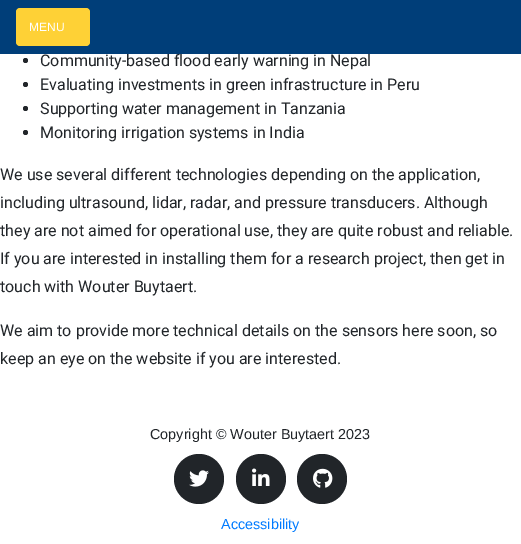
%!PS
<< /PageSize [521 544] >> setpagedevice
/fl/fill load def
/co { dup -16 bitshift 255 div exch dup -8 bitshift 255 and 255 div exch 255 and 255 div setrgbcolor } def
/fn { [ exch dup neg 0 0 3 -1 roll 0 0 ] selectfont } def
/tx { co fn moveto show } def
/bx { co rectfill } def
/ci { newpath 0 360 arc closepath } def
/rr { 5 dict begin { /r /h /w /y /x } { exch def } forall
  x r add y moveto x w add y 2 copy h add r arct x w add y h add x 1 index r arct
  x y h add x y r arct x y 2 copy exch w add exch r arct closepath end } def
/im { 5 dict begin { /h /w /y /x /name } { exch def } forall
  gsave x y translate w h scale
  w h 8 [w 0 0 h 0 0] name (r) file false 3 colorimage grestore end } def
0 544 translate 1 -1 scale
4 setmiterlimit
0 0 521 544 16#FFFFFF bx
16#212529 co
25.5 60.5 2.5 ci fl
25.5 84.5 2.5 ci fl
25.5 108.5 2.5 ci fl
25.5 132.5 2.5 ci fl
199 479 25 ci fl
(media/1.raw) 189 470 20 17 im
261 479 25 ci fl
(media/2.raw) 252 468 18 18 im
322 479 25 ci fl
(media/3.raw) 313 468 20 20 im
(Community-based flood early warning in Nepal) 40 66 /Roboto-Regular 16 16#212529 tx
0 0 521 54 16#003E79 bx
16#FED136 co
16 8 74 38 4 rr fl
(MENU) 29 31 /LiberationSans-Regular 12 16#FFFFFF tx
(Evaluating investments in green infrastructure in Peru) 40 90 /Roboto-Regular 16 16#212529 tx
(Supporting water management in Tanzania) 40 114 /Roboto-Regular 16 16#212529 tx
(Monitoring irrigation systems in India) 40 138 /Roboto-Regular 16 16#212529 tx
(We use several different technologies depending on the application,) 0 180 /Roboto-Regular 16 16#212529 tx
(including ultrasound, lidar, radar, and pressure transducers. Although) 0 208 /Roboto-Regular 16 16#212529 tx
(they are not aimed for operational use, they are quite robust and reliable.) 0 236 /Roboto-Regular 16 16#212529 tx
(If you are interested in installing them for a research project, then get in) 0 264 /Roboto-Regular 16 16#212529 tx
(touch with Wouter Buytaert.) 0 292 /Roboto-Regular 16 16#212529 tx
(We aim to provide more technical details on the sensors here soon, so) 0 336 /Roboto-Regular 16 16#212529 tx
(keep an eye on the website if you are interested.) 0 364 /Roboto-Regular 16 16#212529 tx
(Copyright © Wouter Buytaert 2023) 150 439 /LiberationSans-Regular 14.4 16#212529 tx
(Accessibility) 221 529 /LiberationSans-Regular 14.4 16#007BFF tx
showpage
